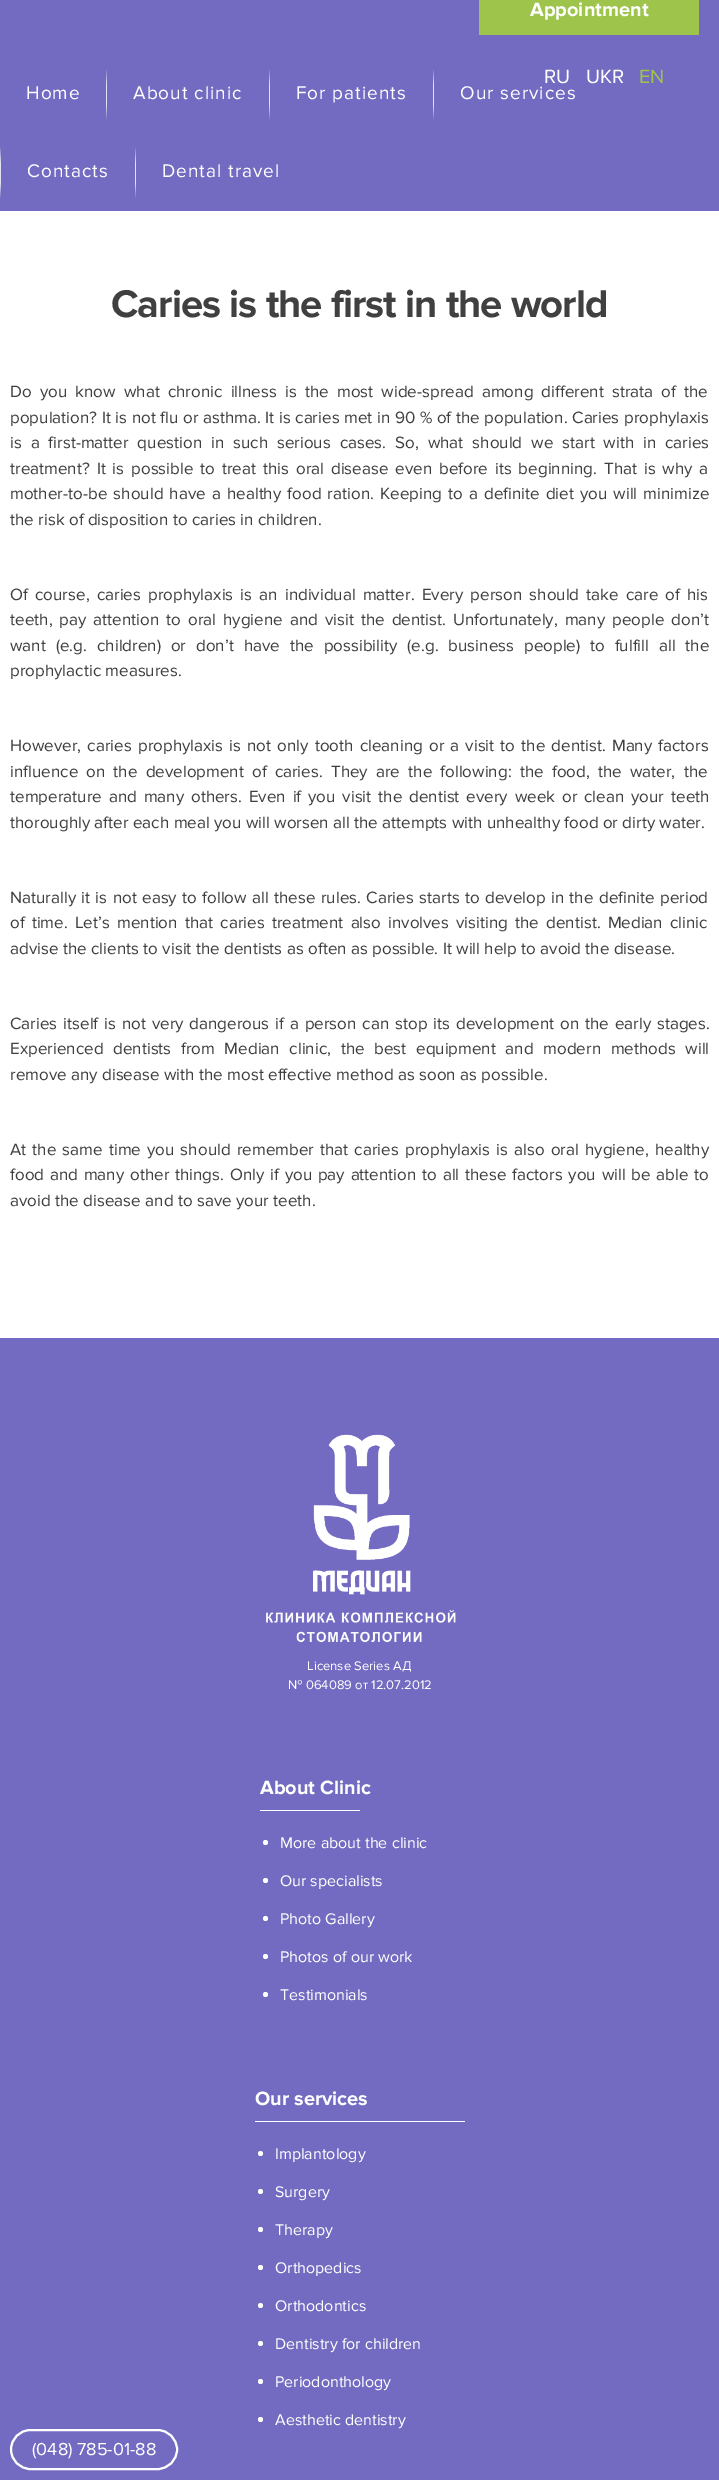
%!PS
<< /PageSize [719 2480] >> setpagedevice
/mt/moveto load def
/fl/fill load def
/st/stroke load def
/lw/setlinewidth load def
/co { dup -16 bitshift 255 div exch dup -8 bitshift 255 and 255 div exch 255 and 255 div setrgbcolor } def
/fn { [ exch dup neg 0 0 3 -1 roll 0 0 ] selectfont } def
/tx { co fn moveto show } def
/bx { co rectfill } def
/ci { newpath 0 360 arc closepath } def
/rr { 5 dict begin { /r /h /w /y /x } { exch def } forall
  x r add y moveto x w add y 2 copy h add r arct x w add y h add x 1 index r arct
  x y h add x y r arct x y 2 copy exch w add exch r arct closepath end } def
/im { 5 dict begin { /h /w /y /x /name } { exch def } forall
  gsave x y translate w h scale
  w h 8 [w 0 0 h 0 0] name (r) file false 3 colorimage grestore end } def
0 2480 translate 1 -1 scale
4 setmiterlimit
0 0 719 2480 16#FFFFFF bx
0 0 719 211 16#736BC1 bx
479 0 220 35 16#9EC44B bx
(media/1.raw) 106 69 1 51 im
(media/1.raw) 269 69 1 51 im
(media/1.raw) 433 69 1 51 im
(media/1.raw) 0 147 1 51 im
(media/1.raw) 135 147 1 51 im
0 1338 719 1142 16#736BC1 bx
(media/2.raw) 266 1434 190 209 im
260 1810 100 1 16#FFFFFF bx
265.5 1842.5 2.5 ci fl
265.5 1880.5 2.5 ci fl
265.5 1918.5 2.5 ci fl
265.5 1956.5 2.5 ci fl
265.5 1994.5 2.5 ci fl
255 2121 210 1 16#FFFFFF bx
260.5 2153.5 2.5 ci fl
260.5 2191.5 2.5 ci fl
260.5 2229.5 2.5 ci fl
260.5 2267.5 2.5 ci fl
260.5 2305.5 2.5 ci fl
260.5 2343.5 2.5 ci fl
260.5 2381.5 2.5 ci fl
260.5 2419.5 2.5 ci fl
2 lw
11 2430 166 39 19.5 rr st
(Appointment) 530 16 /ProximaNova-Bold 20 16#FFFFFF tx
(RU) 544 83 /ProximaNova-Regular 20 16#FFFFFF tx
(UKR) 586 83 /ProximaNova-Regular 20 16#FFFFFF tx
(EN) 639 83 /ProximaNova-Regular 20 16#9EC44B tx
/ProximaNova-Regular 19 fn
16#FFFFFF co
26 99 mt 1 0 (Home) ashow
133 99 mt 1 0 (About clinic) ashow
296 99 mt 1 0 (For patients) ashow
460 99 mt 1 0 (Our services) ashow
27 177 mt 1 0 (Contacts) ashow
162 177 mt 1 0 (Dental travel) ashow
/ProximaNova-Bold 40 fn
16#404040 co
111 317 mt -1 0 (Caries is the first in the world) ashow
/ProximaNova-Regular 17 fn
10 397 mt 3.75 0 32 (Do you know what chronic illness is the most wide-spread among different strata of the) widthshow
10 423 mt .2 0 32 (population? It is not flu or asthma. It is caries met in 90 % of the population. Caries prophylaxis) widthshow
10 448 mt 4.5 0 32 (is a first-matter question in such serious cases. So, what should we start with in caries) widthshow
10 474 mt 2.5 0 32 (treatment? It is possible to treat this oral disease even before its beginning. That is why a) widthshow
10 499 mt 1.7 0 32 (mother-to-be should have a healthy food ration. Keeping to a definite diet you will minimize) widthshow
(the risk of disposition to caries in children.) 10 525 /ProximaNova-Regular 17 16#404040 tx
10 600 mt 2.75 0 32 (Of course, caries prophylaxis is an individual matter. Every person should take care of his) widthshow
10 625 mt 2.6 0 32 (teeth, pay attention to oral hygiene and visit the dentist. Unfortunately, many people don’t) widthshow
10 651 mt 5.5 0 32 (want \(e.g. children\) or don’t have the possibility \(e.g. business people\) to fulfill all the) widthshow
(prophylactic measures.) 10 676 /ProximaNova-Regular 17 16#404040 tx
10 751 mt 1.75 0 32 (However, caries prophylaxis is not only tooth cleaning or a visit to the dentist. Many factors) widthshow
10 777 mt 3.75 0 32 (influence on the development of caries. They are the following: the food, the water, the) widthshow
10 802 mt 2.5 0 32 (temperature and many others. Even if you visit the dentist every week or clean your teeth) widthshow
(thoroughly after each meal you will worsen all the attempts with unhealthy food or dirty water.) 10 828 /ProximaNova-Regular 17 16#404040 tx
10 903 mt 1 0 32 (Naturally it is not easy to follow all these rules. Caries starts to develop in the definite period) widthshow
10 928 mt 2.75 0 32 (of time. Let’s mention that caries treatment also involves visiting the dentist. Median clinic) widthshow
(advise the clients to visit the dentists as often as possible. It will help to avoid the disease.) 10 954 /ProximaNova-Regular 17 16#404040 tx
10 1029 mt 1.5 0 32 (Caries itself is not very dangerous if a person can stop its development on the early stages.) widthshow
10 1054 mt 5.25 0 32 (Experienced dentists from Median clinic, the best equipment and modern methods will) widthshow
(remove any disease with the most effective method as soon as possible.) 10 1080 /ProximaNova-Regular 17 16#404040 tx
10 1155 mt 1.75 0 32 (At the same time you should remember that caries prophylaxis is also oral hygiene, healthy) widthshow
10 1180 mt 1.4 0 32 (food and many other things. Only if you pay attention to all these factors you will be able to) widthshow
(avoid the disease and to save your teeth.) 10 1206 /ProximaNova-Regular 17 16#404040 tx
(License Series АД) 307 1670 /ProximaNova-Regular 13 16#FFFFFF tx
(№ 064089 от 12.07.2012) 288 1689 /ProximaNova-Regular 13 16#FFFFFF tx
(About Clinic) 260 1794 /ProximaNova-Bold 20 16#FFFFFF tx
(More about the clinic) 280 1848 /ProximaNova-Regular 16 16#FFFFFF tx
(Our specialists) 280 1886 /ProximaNova-Regular 16 16#FFFFFF tx
(Photo Gallery) 280 1924 /ProximaNova-Regular 16 16#FFFFFF tx
(Photos of our work) 280 1962 /ProximaNova-Regular 16 16#FFFFFF tx
(Testimonials) 280 2000 /ProximaNova-Regular 16 16#FFFFFF tx
(Our services) 255 2105 /ProximaNova-Bold 20 16#FFFFFF tx
(Implantology) 275 2159 /ProximaNova-Regular 16 16#FFFFFF tx
(Surgery) 275 2197 /ProximaNova-Regular 16 16#FFFFFF tx
(Therapy) 275 2235 /ProximaNova-Regular 16 16#FFFFFF tx
(Orthopedics) 275 2273 /ProximaNova-Regular 16 16#FFFFFF tx
(Orthodontics) 275 2311 /ProximaNova-Regular 16 16#FFFFFF tx
(Dentistry for children) 275 2349 /ProximaNova-Regular 16 16#FFFFFF tx
(Periodonthology) 275 2387 /ProximaNova-Regular 16 16#FFFFFF tx
(Aesthetic dentistry) 275 2425 /ProximaNova-Regular 16 16#FFFFFF tx
(\(048\) 785-01-88) 32 2455 /ProximaNova-Regular 18 16#FFFFFF tx
showpage
